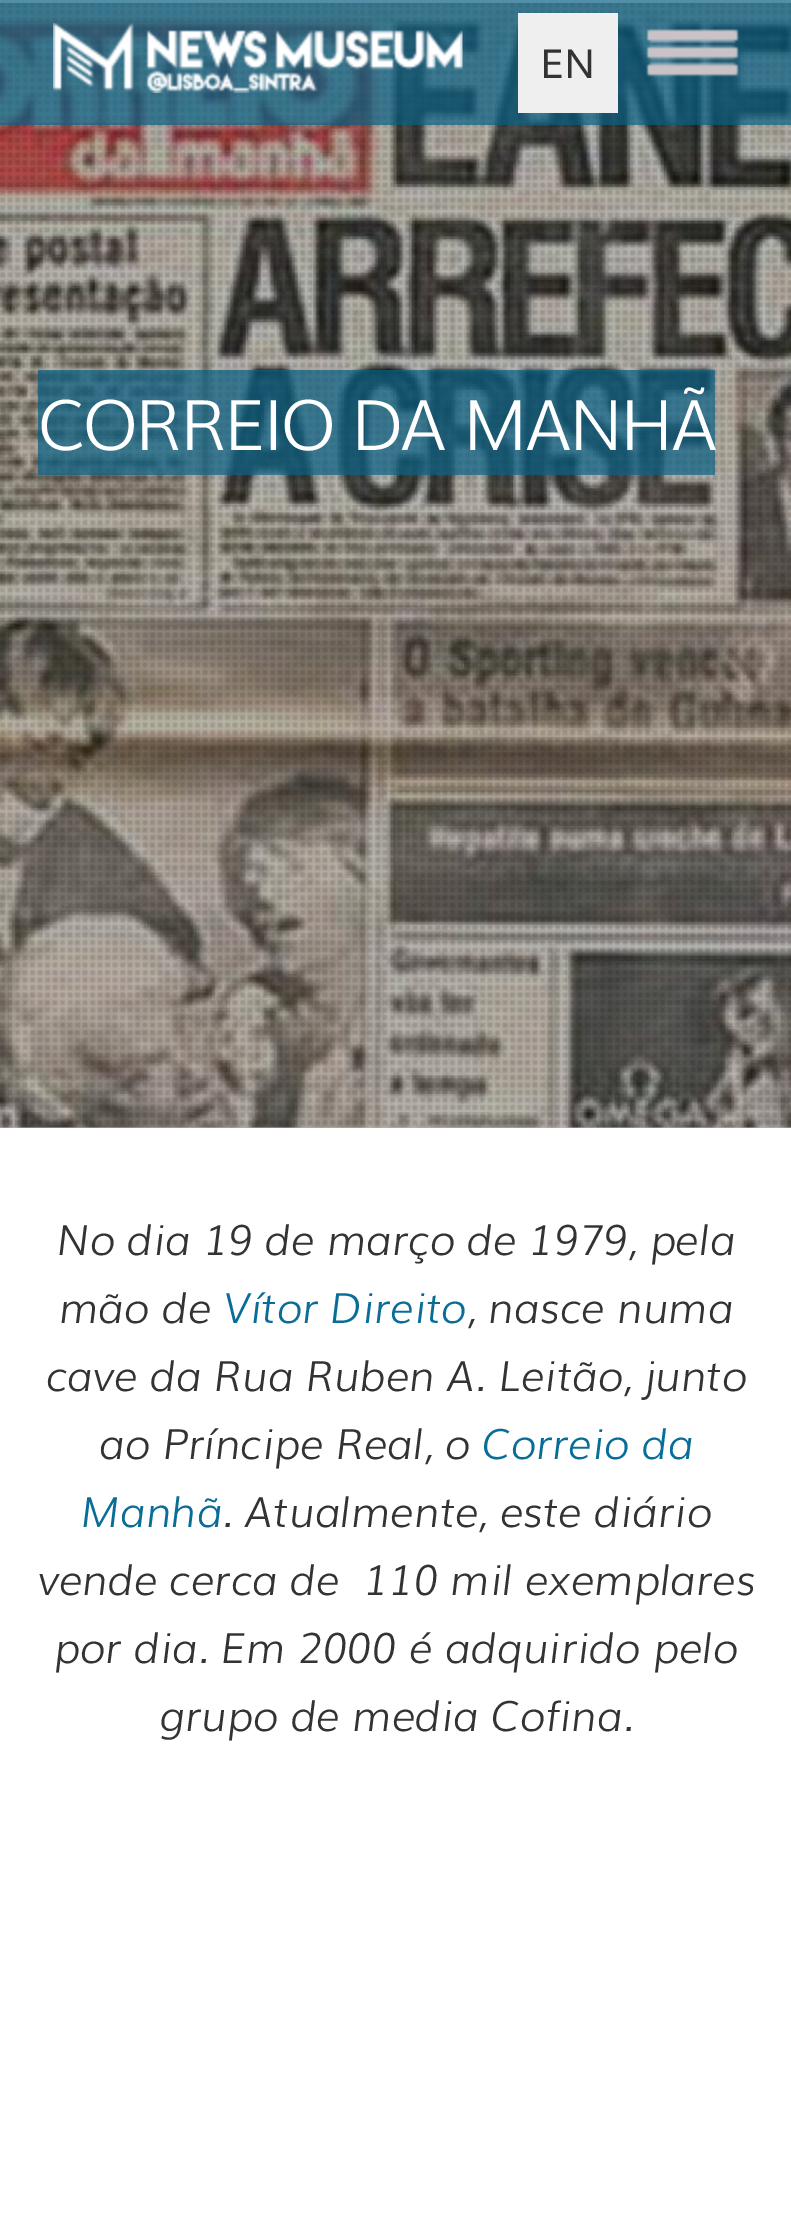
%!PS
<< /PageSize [791 2217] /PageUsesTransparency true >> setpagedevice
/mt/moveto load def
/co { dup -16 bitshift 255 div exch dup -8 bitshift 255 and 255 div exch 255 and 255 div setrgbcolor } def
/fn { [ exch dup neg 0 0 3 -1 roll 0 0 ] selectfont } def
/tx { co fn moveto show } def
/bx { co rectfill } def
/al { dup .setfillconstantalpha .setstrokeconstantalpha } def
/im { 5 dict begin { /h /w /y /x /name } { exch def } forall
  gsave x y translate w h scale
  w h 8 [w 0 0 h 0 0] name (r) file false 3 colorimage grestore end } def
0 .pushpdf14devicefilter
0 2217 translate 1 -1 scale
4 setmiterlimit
0 0 791 2217 16#FFFFFF bx
0 1127 791 1 16#B8B8B8 bx
(media/3.raw) 0 2 791 1126 im
(media/4.raw) 0 3 791 1123 im
0.7 al
0 0 791 125 16#086085 bx
1 al
(media/1.raw) 53 23 410 70 im
518 13 100 100 16#EFEFEF bx
(media/2.raw) 646 28 93 49 im
0.7 al
38 370 312 105 16#086085 bx
350 370 113 105 16#086085 bx
463 370 252 105 16#086085 bx
1 al
(EN) 540 78 /Muli-Regular 40 16#333333 tx
/Muli-Light 70 fn
16#FFFFFF co
38 450 mt -2.5 0 (CORREIO DA MANHÃ) ashow
(No dia 19 de março de 1979, pela) 57 1255 /Muli-LightItalic 42 16#333333 tx
(mão de) 59 1323 /Muli-LightItalic 42 16#333333 tx
(Vítor Direito) 223 1323 /Muli-LightItalic 42 16#096D97 tx
(, nasce numa) 467 1323 /Muli-LightItalic 42 16#333333 tx
(cave da Rua Ruben A. Leitão, junto) 46 1391 /Muli-LightItalic 42 16#333333 tx
(ao Príncipe Real, o) 99 1459 /Muli-LightItalic 42 16#333333 tx
(Correio da) 482 1459 /Muli-LightItalic 42 16#096D97 tx
(Manhã) 81 1527 /Muli-LightItalic 42 16#096D97 tx
(. Atualmente, este diário) 222 1527 /Muli-LightItalic 42 16#333333 tx
(vende cerca de  110 mil exemplares) 38 1595 /Muli-LightItalic 42 16#333333 tx
(por dia. Em 2000 é adquirido pelo) 54 1663 /Muli-LightItalic 42 16#333333 tx
(grupo de media Cofina.) 159 1731 /Muli-LightItalic 42 16#333333 tx
.poppdf14devicefilter showpage
